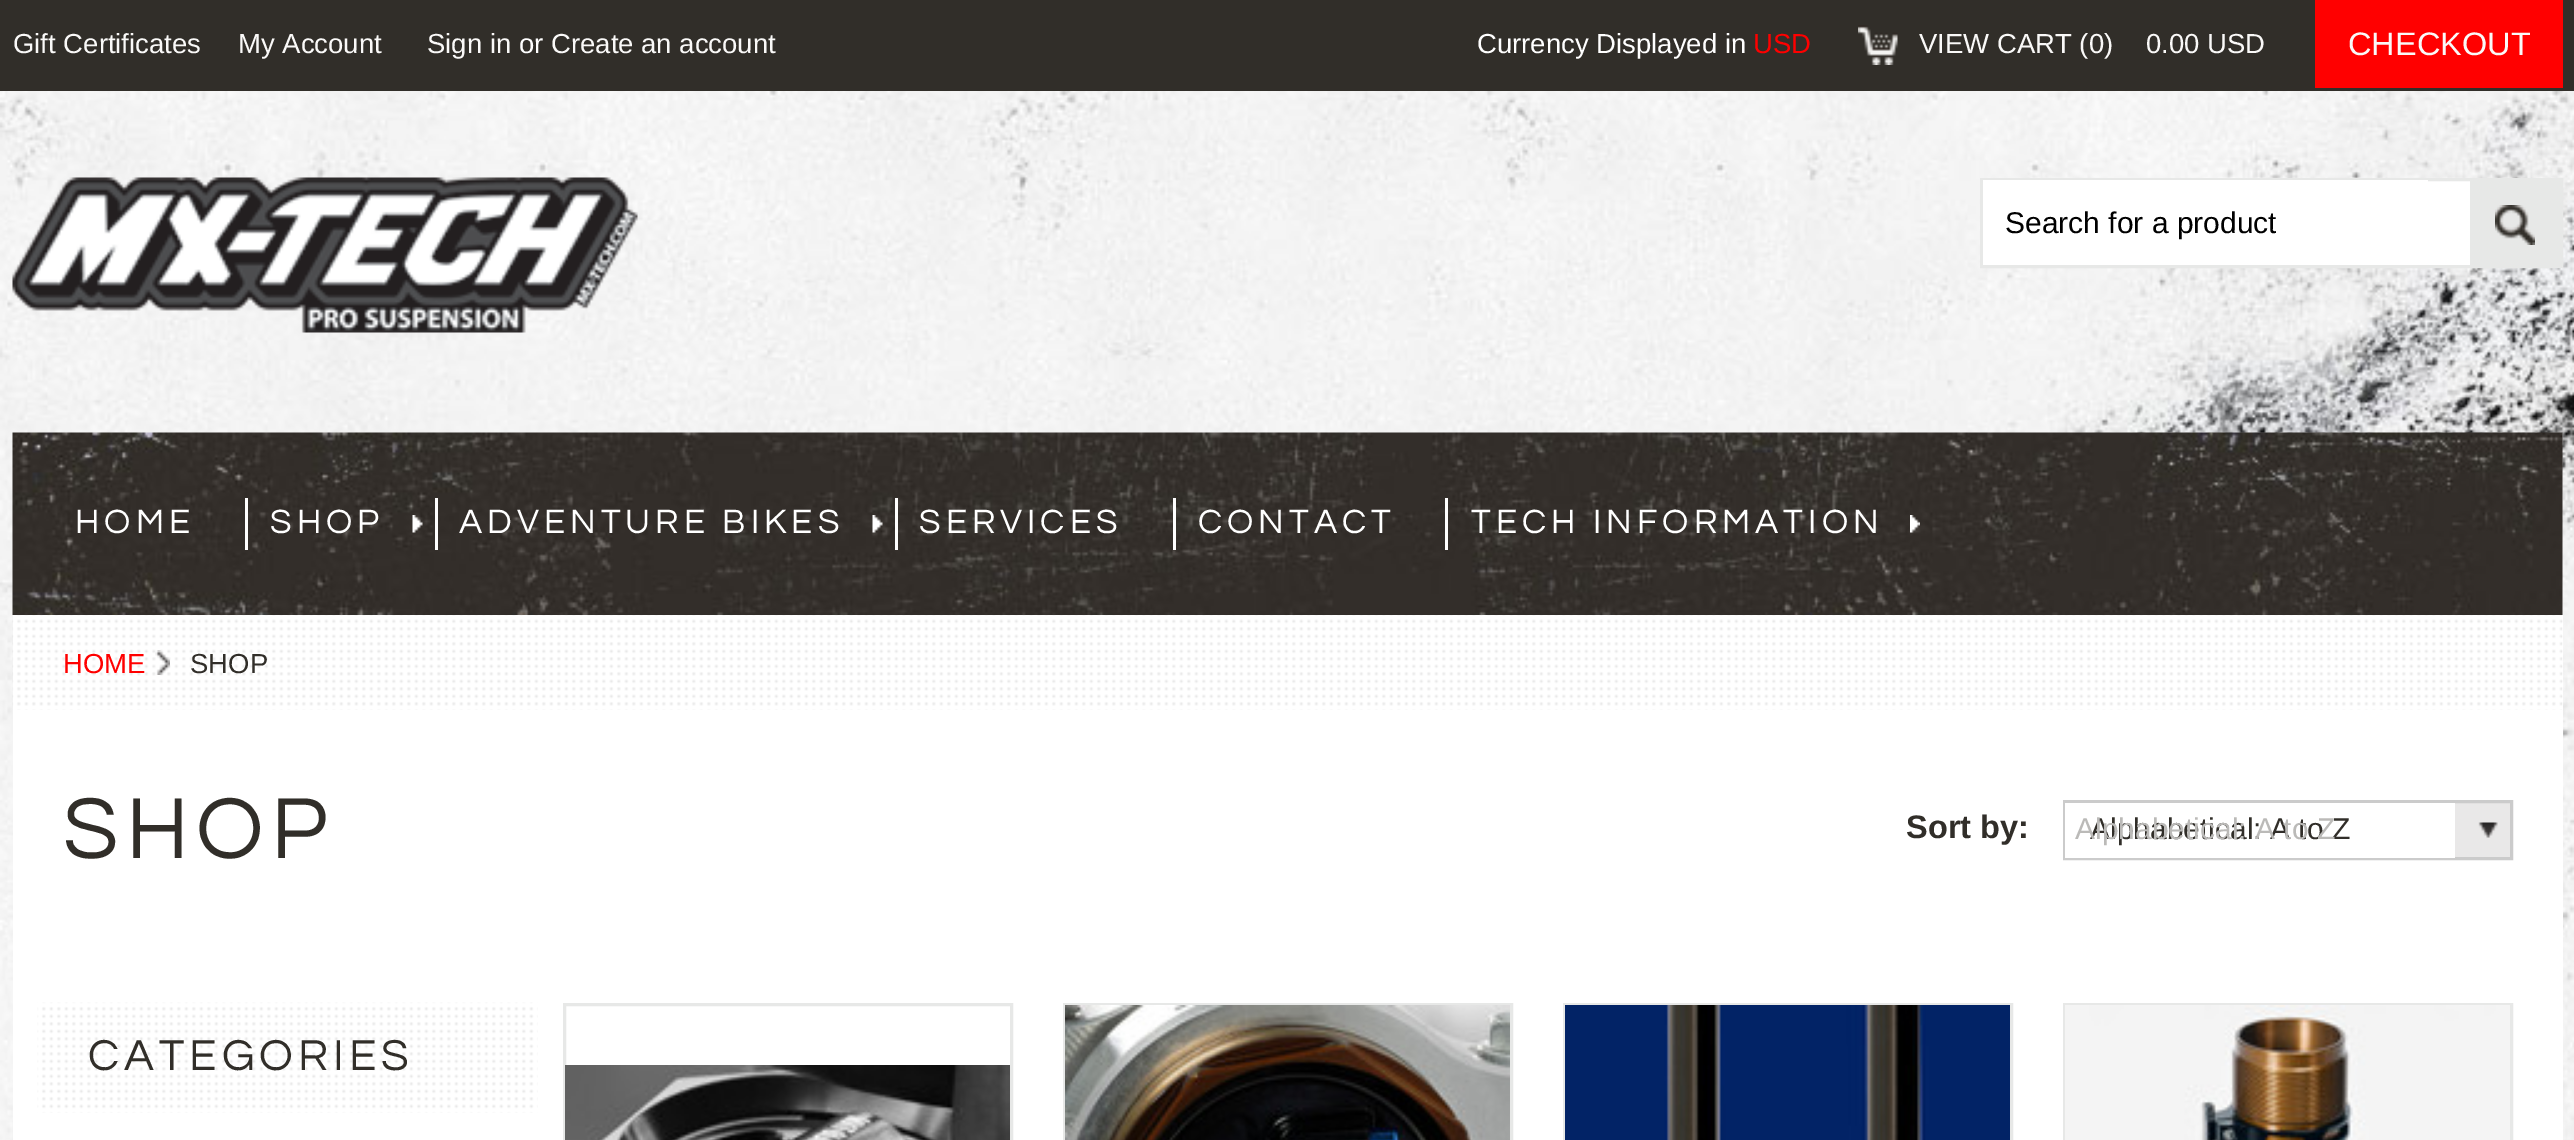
%!PS
<< /PageSize [2574 1140] >> setpagedevice
/mt/moveto load def
/lw/setlinewidth load def
/co { dup -16 bitshift 255 div exch dup -8 bitshift 255 and 255 div exch 255 and 255 div setrgbcolor } def
/fn { [ exch dup neg 0 0 3 -1 roll 0 0 ] selectfont } def
/tx { co fn moveto show } def
/bx { co rectfill } def
/im { 5 dict begin { /h /w /y /x /name } { exch def } forall
  gsave x y translate w h scale
  w h 8 [w 0 0 h 0 0] name (r) file false 3 colorimage grestore end } def
0 1140 translate 1 -1 scale
4 setmiterlimit
0 0 2574 1140 16#FFFFFF bx
(media/1.raw) 0 91 2574 1049 im
0 0 2574 91 16#312E29 bx
(media/2.raw) 1858 25 40 40 im
2315 0 248 88 16#FF0000 bx
(media/3.raw) 12 177 626 156 im
2428 181 42 84 16#FFFFFF bx
16#E7E8E7 co
3 lw
1981.5 179.5 580 87 rectstroke
1983 180 445 85 16#FFFFFF bx
2470 181 90 84 16#E7E8E7 bx
(media/4.raw) 2495 205 40 40 im
(media/5.raw) 12 432 2551 183 im
245 498 3 52 16#FFFFFF bx
(media/6.raw) 412 515 11 18 im
435 498 3 52 16#FFFFFF bx
(media/7.raw) 872 515 11 18 im
895 498 3 52 16#FFFFFF bx
1173 498 3 52 16#FFFFFF bx
1445 498 3 52 16#FFFFFF bx
(media/8.raw) 1910 515 10 18 im
13 615 2550 525 16#FFFFFF bx
(media/9.raw) 12 615 2551 95 im
(media/10.raw) 155 650 15 25 im
2455 803 55 54 16#E9E8E8 bx
(media/11.raw) 2478 822 20 16 im
16#CBCBCB co
2064.5 801.5 447 57 rectstroke
2065 803 390 55 16#FFFFFF bx
(media/12.raw) 37 1002 501 111 im
16#E7E8E7 co
564.5 1004.5 447 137 rectstroke
(media/13.raw) 565 1065 445 75 im
1064.5 1004.5 447 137 rectstroke
(media/14.raw) 1065 1005 445 135 im
1564.5 1004.5 447 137 rectstroke
(media/15.raw) 1565 1005 445 135 im
2064.5 1004.5 447 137 rectstroke
(media/16.raw) 2065 1005 445 135 im
(Gift Certificates) 13 53 /LiberationSans-Regular 27.5 16#FAF9F8 tx
(My Account) 238 53 /LiberationSans-Regular 27.5 16#FAF9F8 tx
(Sign in) 427 53 /LiberationSans-Regular 27.5 16#FAF9F8 tx
(or) 519 53 /LiberationSans-Regular 27.5 16#FFFFFF tx
(Create an account) 551 53 /LiberationSans-Regular 27.5 16#FAF9F8 tx
(Currency Displayed in) 1477 53 /LiberationSans-Regular 27.5 16#FFFFFF tx
(USD) 1753 53 /LiberationSans-Regular 27.5 16#FF0000 tx
(VIEW CART \(0\)) 1919 53 /LiberationSans-Regular 27.5 16#FAF9F8 tx
(0.00 USD) 2146 53 /LiberationSans-Regular 27.5 16#FAF9F8 tx
(CHECKOUT) 2348 55 /LiberationSans-Regular 32.5 16#FAF9F8 tx
(Search for a product) 2005 233 /LiberationSans-Regular 30 16#000000 tx
/Questrial-Regular 35 fn
16#FFFFFF co
75 533 mt 5 0 (HOME) ashow
270 533 mt 5 0 (SHOP) ashow
459 533 mt 5 0 (ADVENTURE BIKES) ashow
919 533 mt 5 0 (SERVICES) ashow
1198 533 mt 5 0 (CONTACT) ashow
1471 533 mt 5 0 (TECH INFORMATION) ashow
(HOME) 63 673 /LiberationSans-Regular 27.5 16#FF0000 tx
(SHOP) 190 673 /LiberationSans-Regular 27.5 16#312E29 tx
/Questrial-Regular 90 fn
63 858 mt 7.5 0 (SHOP) ashow
(Sort by:) 1906 838 /LiberationSans-Bold 32.5 16#312E29 tx
(Alphabetical: A to Z) 2090 839 /LiberationSans-Regular 30 16#312E29 tx
(Alphabetical: A to Z) 2075 839 /LiberationSans-Regular 30 16#BBBAB8 tx
/Questrial-Regular 45 fn
16#312E29 co
88 1070 mt 5 0 (CATEGORIES) ashow
showpage
